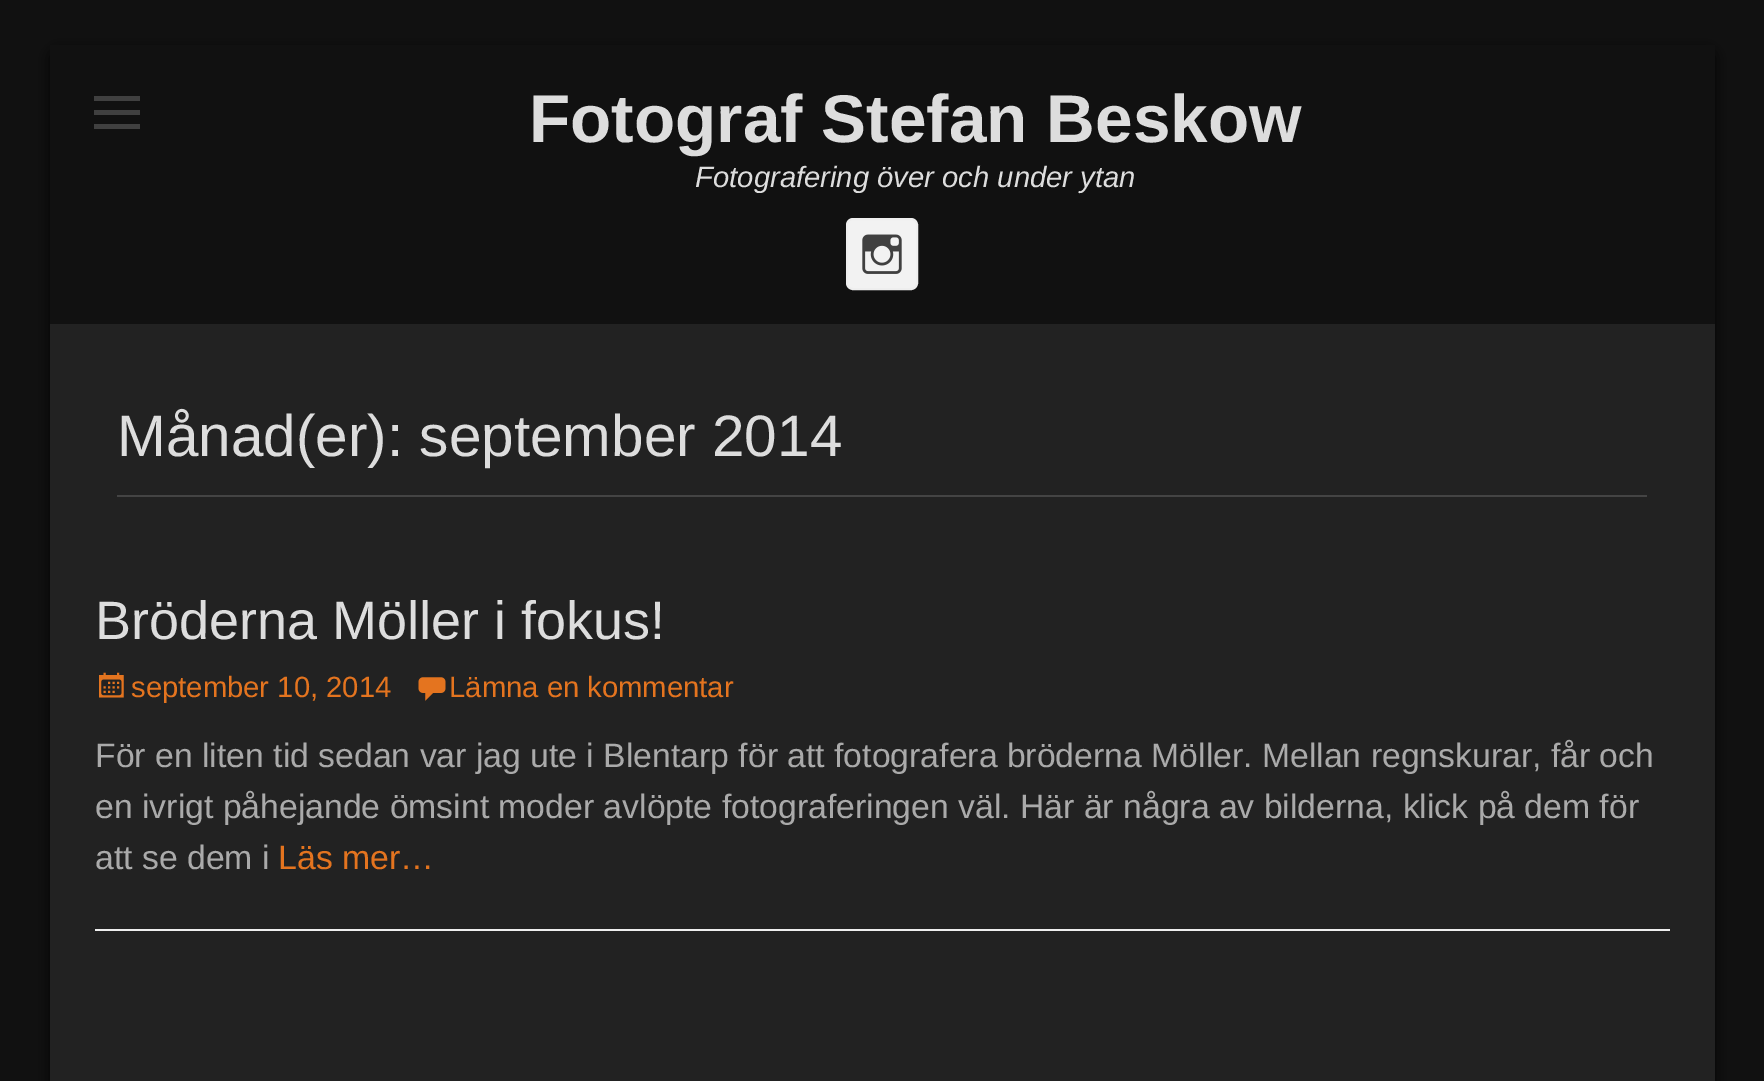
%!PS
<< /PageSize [1764 1081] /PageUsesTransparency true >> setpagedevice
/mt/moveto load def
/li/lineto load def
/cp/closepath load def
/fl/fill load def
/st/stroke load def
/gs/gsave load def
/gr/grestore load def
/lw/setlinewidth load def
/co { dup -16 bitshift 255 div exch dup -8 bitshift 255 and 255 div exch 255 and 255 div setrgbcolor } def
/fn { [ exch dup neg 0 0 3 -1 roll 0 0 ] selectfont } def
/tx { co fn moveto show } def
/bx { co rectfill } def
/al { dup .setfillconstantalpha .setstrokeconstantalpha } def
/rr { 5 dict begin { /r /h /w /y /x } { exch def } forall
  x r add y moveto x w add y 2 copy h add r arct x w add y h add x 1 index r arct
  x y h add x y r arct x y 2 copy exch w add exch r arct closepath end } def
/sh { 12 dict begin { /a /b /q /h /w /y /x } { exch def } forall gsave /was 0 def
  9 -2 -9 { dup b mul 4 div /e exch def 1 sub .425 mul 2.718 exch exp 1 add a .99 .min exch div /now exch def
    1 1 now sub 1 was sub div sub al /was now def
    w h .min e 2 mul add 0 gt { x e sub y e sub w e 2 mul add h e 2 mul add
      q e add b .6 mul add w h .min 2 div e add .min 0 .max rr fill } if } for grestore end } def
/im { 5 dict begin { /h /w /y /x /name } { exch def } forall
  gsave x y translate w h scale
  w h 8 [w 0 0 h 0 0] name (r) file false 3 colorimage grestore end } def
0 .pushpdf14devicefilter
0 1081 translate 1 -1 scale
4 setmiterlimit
0 0 1764 1081 16#111111 bx
16#000000 co
50 50 1665 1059 7 7 .8 sh
50 324 1665 757 16#222222 bx
50 45 1665 279 16#111111 bx
16#404040 co
94 129 mt 94 124 li 140 124 li 140 129 li cp 94 96 mt 140 96 li 140 101 li 94 101 li cp 94 115 mt 94 110 li 140 110 li 140 115 li cp fl
16#F2F2F2 co
847 219 70 70 6 rr gs fl gr
16#EEEEEE co
2 lw
st
(media/1.raw) 862 234 40 40 im
117 495 1530 2 16#444444 bx
95 929 1575 2 16#EEEEEE bx
(media/2.raw) 99 672 25 26 im
(media/3.raw) 418 677 28 24 im
(Fotograf Stefan Beskow) 529 142 /LiberationSans-Bold 67.5 16#DDDDDD tx
(Fotografering över och under ytan) 695 187 /LiberationSans-Italic 29.25 16#DDDDDD tx
(Månad\(er\): september 2014) 117 456 /LiberationSans-Regular 58.5 16#DDDDDD tx
(Bröderna Möller i fokus!) 95 639 /LiberationSans-Regular 54 16#DDDDDD tx
(september 10, 2014) 131 697 /LiberationSans-Regular 29.25 16#E4741F tx
(Lämna en kommentar) 449 697 /LiberationSans-Regular 29.25 16#E4741F tx
(För en liten tid sedan var jag ute i Blentarp för att fotografera bröderna Möller. Mellan regnskurar, får och) 95 767 /LiberationSans-Regular 33.75 16#AAAAAA tx
(en ivrigt påhejande ömsint moder avlöpte fotograferingen väl. Här är några av bilderna, klick på dem för) 95 818 /LiberationSans-Regular 33.75 16#AAAAAA tx
(att se dem i) 95 869 /LiberationSans-Regular 33.75 16#AAAAAA tx
(Läs mer…) 278 869 /LiberationSans-Regular 33.75 16#E4741F tx
.poppdf14devicefilter showpage
